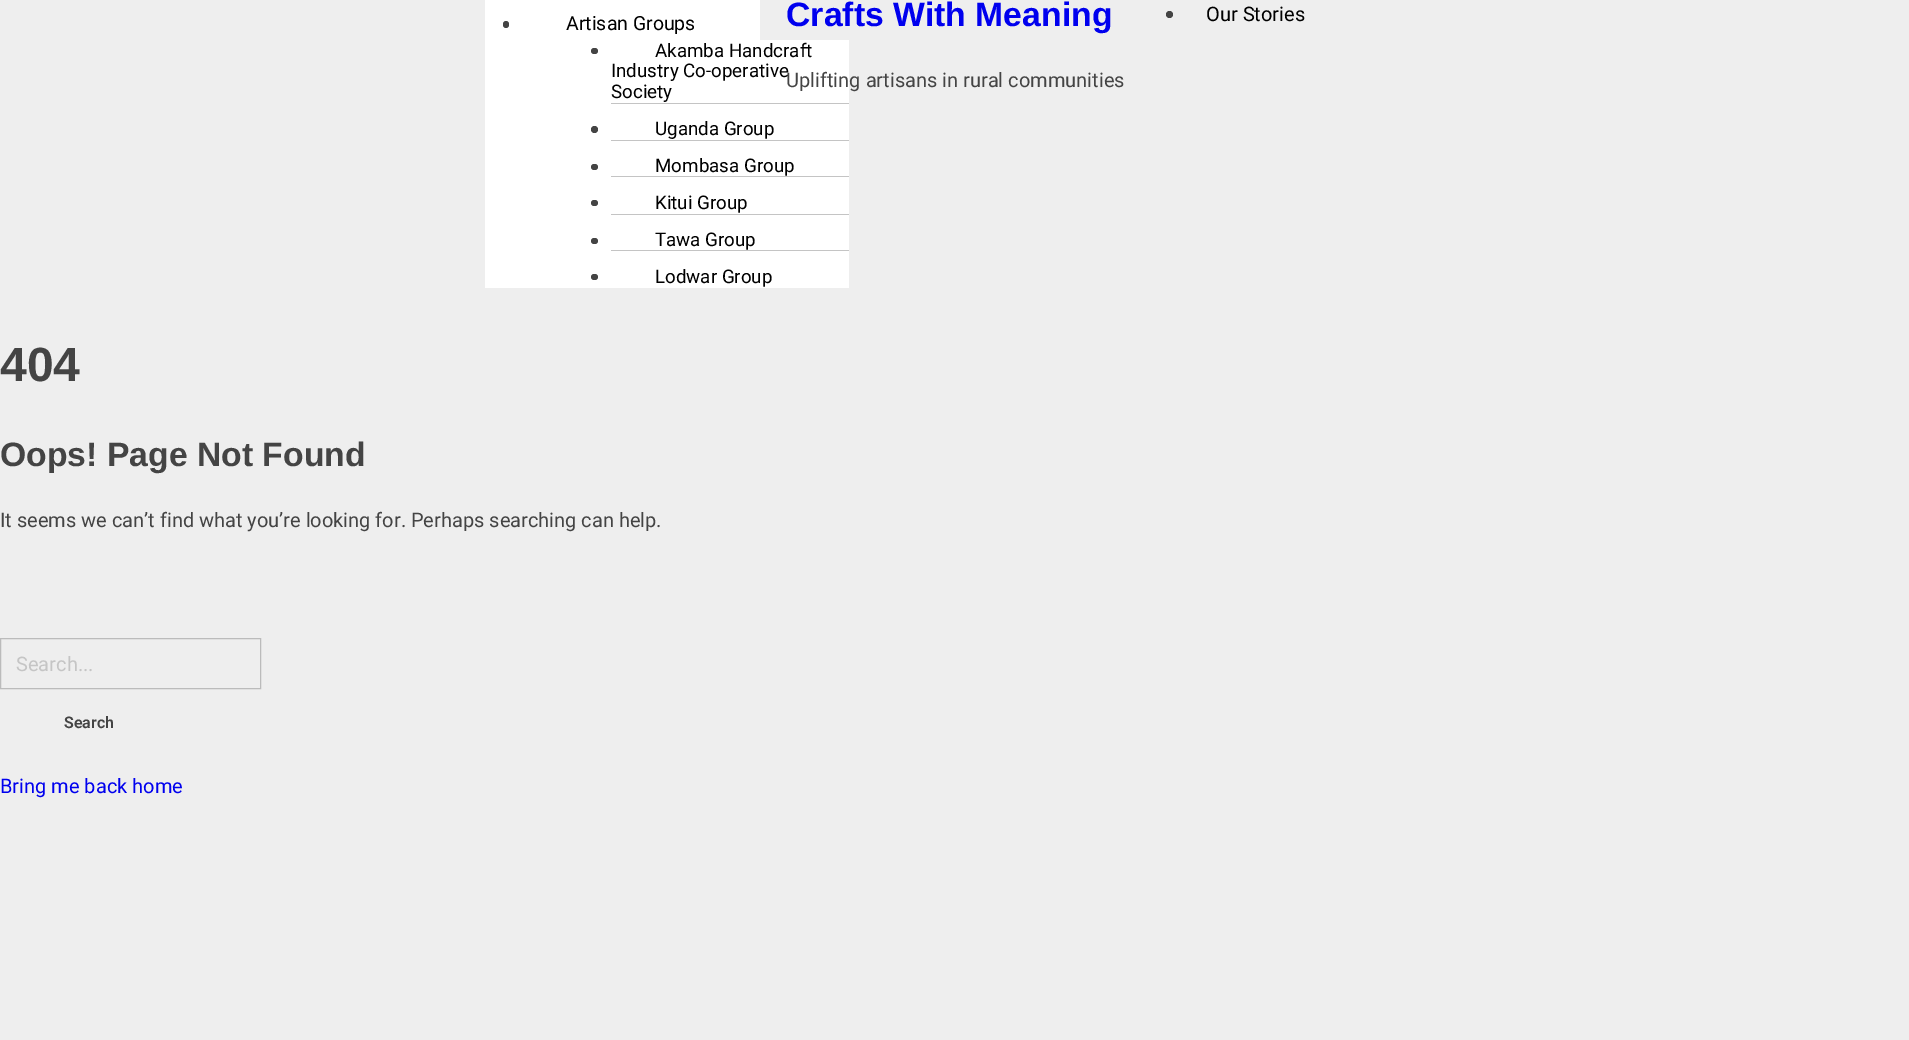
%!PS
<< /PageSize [1909 1040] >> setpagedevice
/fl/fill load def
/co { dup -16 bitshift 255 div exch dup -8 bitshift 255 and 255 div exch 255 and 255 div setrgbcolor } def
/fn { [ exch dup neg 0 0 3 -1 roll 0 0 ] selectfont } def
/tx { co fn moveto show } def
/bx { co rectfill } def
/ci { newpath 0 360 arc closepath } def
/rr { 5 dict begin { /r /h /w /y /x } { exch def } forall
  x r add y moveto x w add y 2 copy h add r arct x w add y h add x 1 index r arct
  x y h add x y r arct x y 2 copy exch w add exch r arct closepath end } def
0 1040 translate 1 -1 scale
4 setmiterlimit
0 0 1909 1040 16#EEEEEE bx
16#444444 co
1169.5 14.5 3.5 ci fl
485 0 275 288 16#FFFFFF bx
16#444444 co
503 21 6 7 3 rr fl
760 40 89 248 16#FFFFFF bx
611 103 238 1 16#C4C4C4 bx
16#444444 co
591 48 7 6 3 rr fl
611 140 238 1 16#C4C4C4 bx
16#444444 co
594.5 129.5 3.5 ci fl
611 176 238 1 16#C4C4C4 bx
16#444444 co
591 164 7 6 3 rr fl
611 214 238 1 16#C4C4C4 bx
16#444444 co
591 200 7 6 3 rr fl
611 250 238 1 16#C4C4C4 bx
16#444444 co
591 238 7 6 3 rr fl
591 274 7 6 3 rr fl
16#BBBBBB co
.5 638.5 260 50 rectstroke
(Crafts With Meaning) 786 26 /LiberationSans-Bold 33.75 16#0000EE tx
(Our Stories) 1206 21 /Roboto-Regular 20 16#000000 tx
(Artisan Groups) 566 30 /Roboto-Regular 19.5 16#000000 tx
(Akamba Handcraft) 655 57 /Roboto-Regular 18.75 16#000000 tx
(Industry Co-operative) 611 77 /Roboto-Regular 18.75 16#000000 tx
(Uplifting artisans in rural communities) 786 87 /Roboto-Regular 20 16#444444 tx
(Society) 611 98 /Roboto-Regular 18.75 16#000000 tx
(Uganda Group) 655 135 /Roboto-Regular 18.75 16#000000 tx
(Mombasa Group) 655 172 /Roboto-Regular 18.75 16#000000 tx
(Kitui Group) 655 209 /Roboto-Regular 18.75 16#000000 tx
(Tawa Group) 655 246 /Roboto-Regular 18.75 16#000000 tx
(Lodwar Group) 655 283 /Roboto-Regular 18.75 16#000000 tx
(404) 0 381 /LiberationSans-Bold 48 16#444444 tx
(Oops! Page Not Found) 0 466 /LiberationSans-Bold 33.75 16#444444 tx
(It seems we can’t find what you’re looking for. Perhaps searching can help.) 0 527 /Roboto-Regular 20 16#444444 tx
(Search...) 16 671 /Roboto-Regular 20 16#C5C5C5 tx
(Search) 64 728 /Roboto-SemiBold 16 16#444444 tx
(Bring me back home) 0 793 /Roboto-Regular 20 16#0000EE tx
showpage
